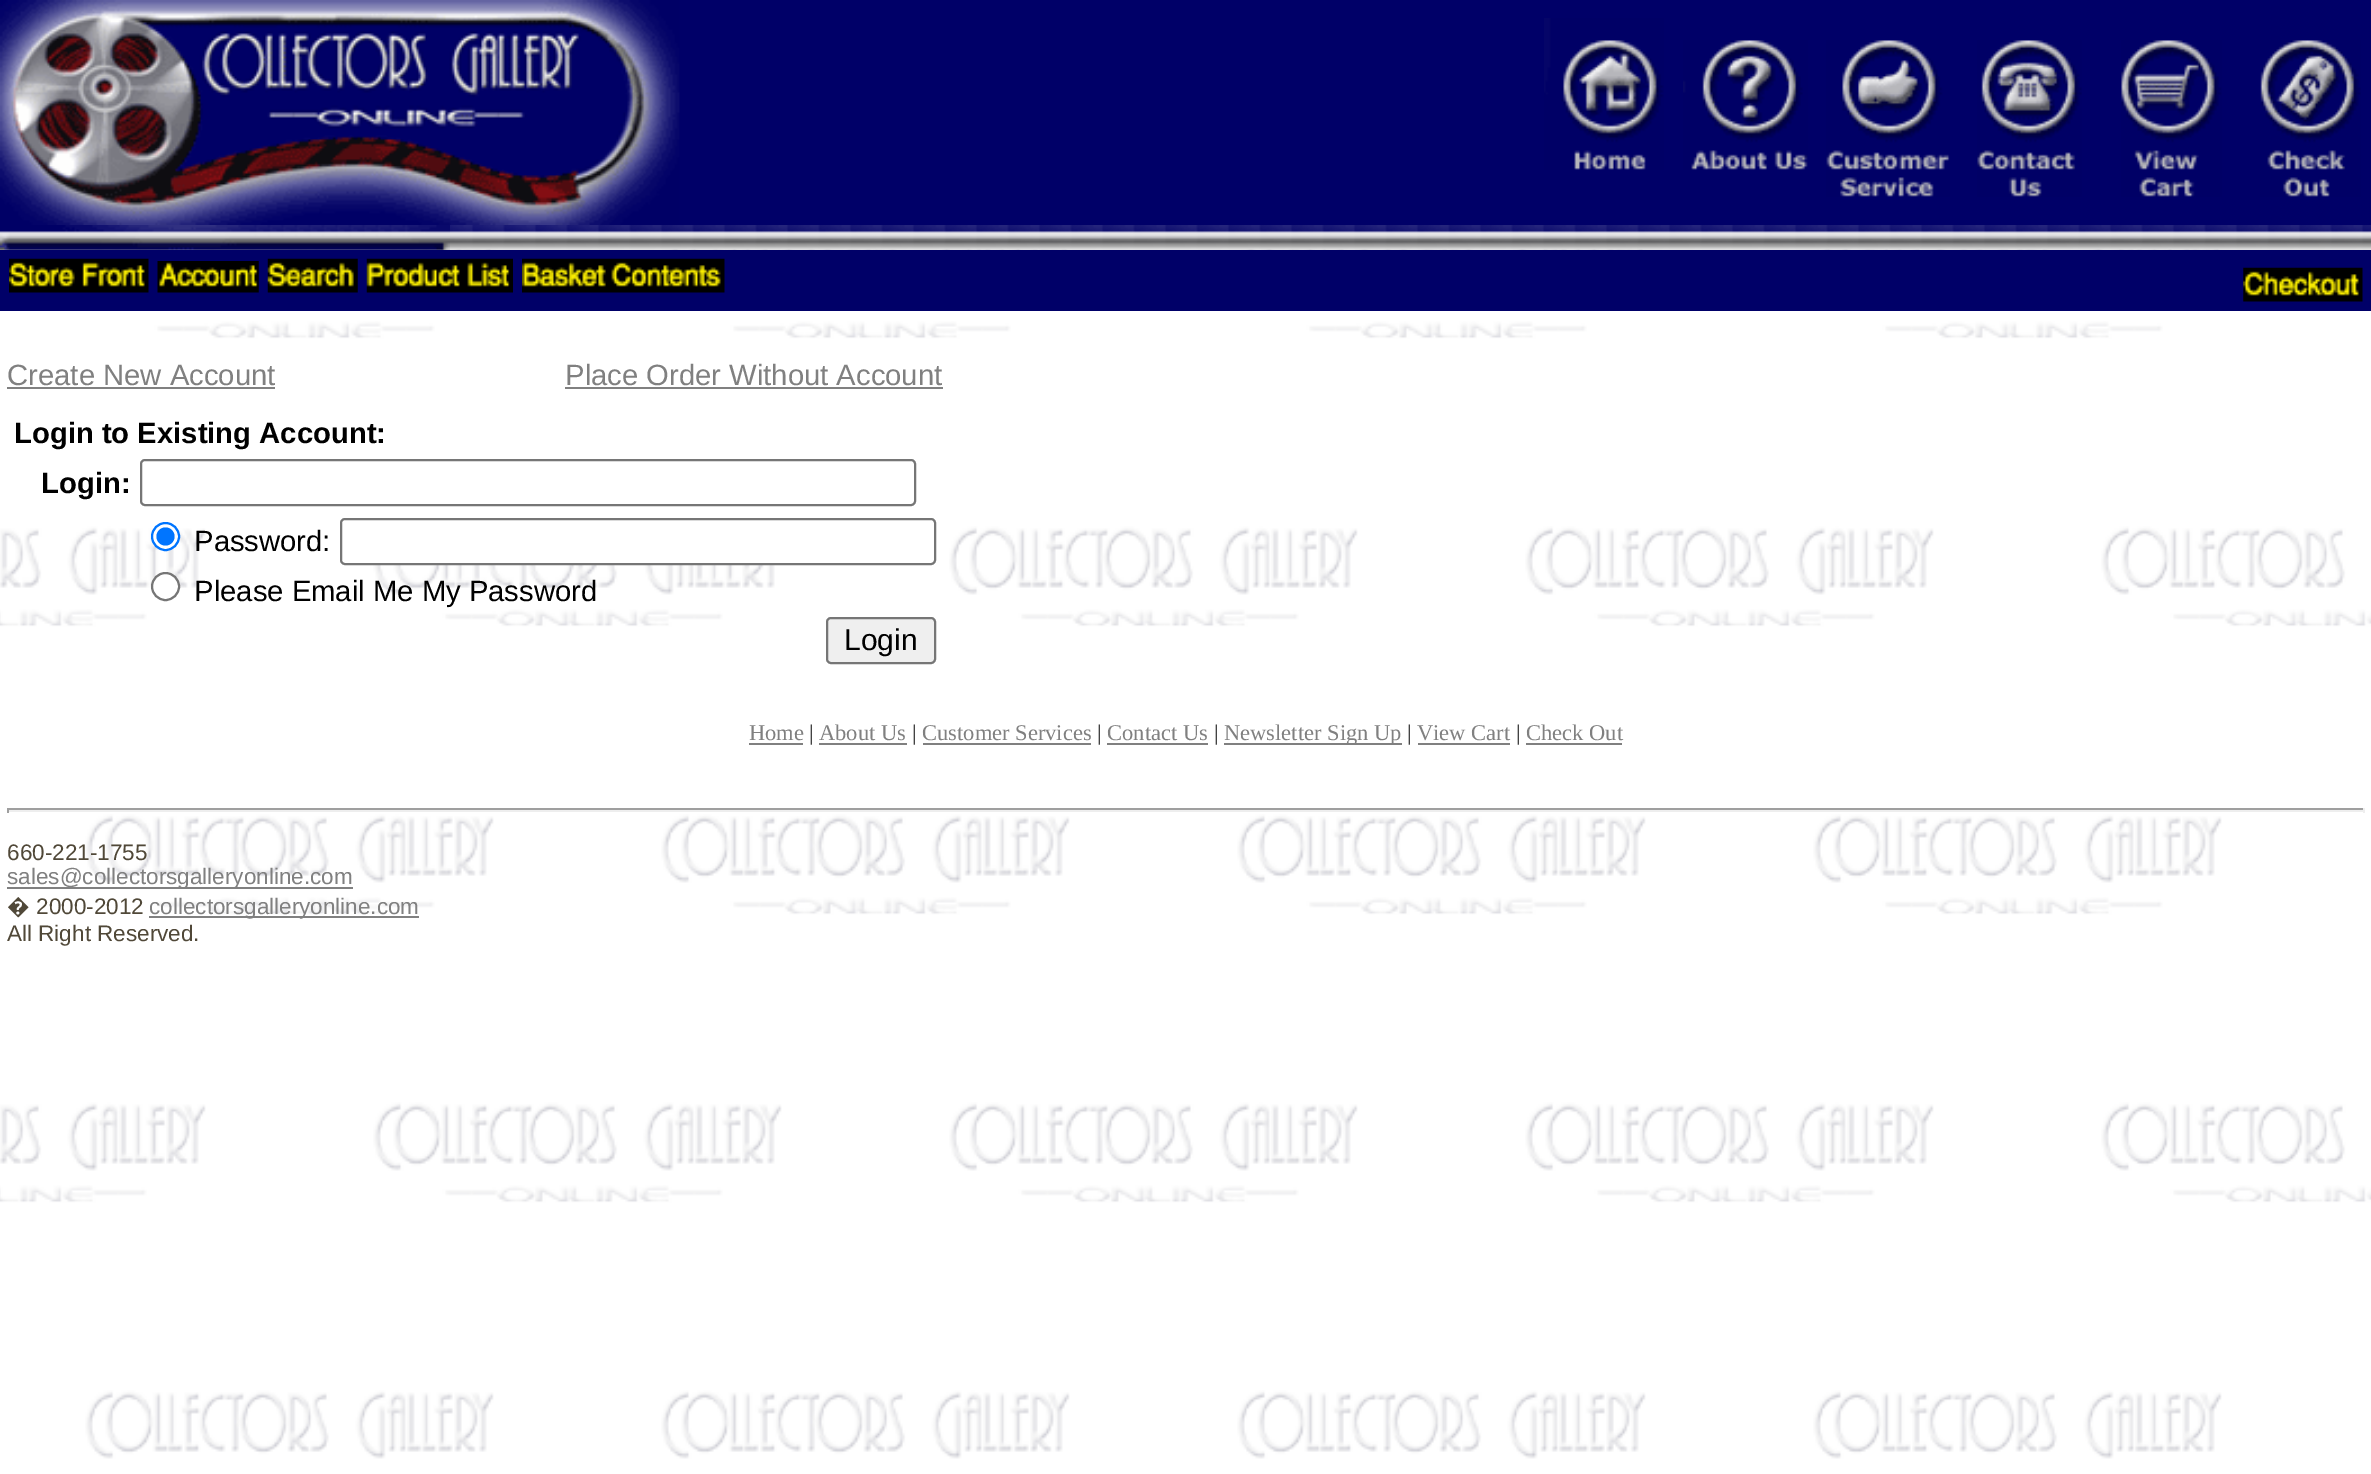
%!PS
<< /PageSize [2371 1474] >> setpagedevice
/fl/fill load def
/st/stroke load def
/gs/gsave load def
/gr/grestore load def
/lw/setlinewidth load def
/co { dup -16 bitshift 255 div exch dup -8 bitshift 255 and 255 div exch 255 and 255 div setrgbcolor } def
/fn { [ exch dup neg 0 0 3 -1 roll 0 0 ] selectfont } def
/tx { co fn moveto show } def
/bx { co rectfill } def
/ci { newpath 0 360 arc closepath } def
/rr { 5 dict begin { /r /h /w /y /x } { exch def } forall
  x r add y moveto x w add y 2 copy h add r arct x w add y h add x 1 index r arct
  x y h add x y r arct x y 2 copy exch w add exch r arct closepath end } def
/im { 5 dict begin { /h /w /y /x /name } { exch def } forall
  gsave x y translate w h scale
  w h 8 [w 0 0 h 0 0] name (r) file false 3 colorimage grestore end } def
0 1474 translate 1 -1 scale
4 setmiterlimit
0 0 2371 1474 16#FFFFFF bx
(media/1.raw) 0 249 2371 1210 im
679 0 1692 225 16#000068 bx
(media/2.raw) 0 0 680 225 im
(media/3.raw) 1544 18 120 152 im
(media/4.raw) 1683 40 125 130 im
(media/5.raw) 1826 40 124 157 im
(media/6.raw) 1977 40 105 157 im
(media/7.raw) 2121 40 101 157 im
(media/8.raw) 2260 40 101 157 im
(media/9.raw) 0 225 2371 25 im
(media/10.raw) 0 225 450 25 im
0 250 2371 61 16#000068 bx
(media/11.raw) 9 258 140 35 im
(media/12.raw) 157 261 102 32 im
(media/13.raw) 267 258 91 35 im
(media/14.raw) 366 258 147 35 im
(media/15.raw) 522 258 203 35 im
(media/16.raw) 2243 267 120 35 im
7 387 268 2 16#808080 bx
565 387 378 2 16#808080 bx
16#767676 co
2 lw
141 460 774 45 4 rr st
16#FFFFFF co
165.5 536.5 13.5 ci gs fl gr
16#0075FF co
st
165.5 536.5 9 ci fl
16#FFFFFF co
341 519 594 45 4 rr gs fl gr
16#767676 co
st
16#FFFFFF co
165.5 586.5 13.5 ci gs fl gr
16#767676 co
st
16#EFEFEF co
827 618 108 45 4 rr gs fl gr
16#767676 co
st
749 743 54 2 16#808080 bx
819 743 88 2 16#808080 bx
923 743 168 2 16#808080 bx
1107 743 101 2 16#808080 bx
1224 743 178 2 16#808080 bx
1418 743 92 2 16#808080 bx
1526 743 96 2 16#808080 bx
7 808 2358 2 16#9F9F9F bx
2363 808 2 5 16#EEEEEE bx
7 810 2358 2 16#EEEEEE bx
7 808 2 5 16#9F9F9F bx
7 887 346 2 16#808080 bx
149 916 270 2 16#808080 bx
(Create New Account) 7 385 /LiberationSans-Regular 29.25 16#808080 tx
(Place Order Without Account) 565 385 /LiberationSans-Regular 29.25 16#808080 tx
(Login to Existing Account:) 14 443 /LiberationSans-Bold 29.25 16#000000 tx
(Login:) 41 493 /LiberationSans-Bold 29.25 16#000000 tx
(Password:) 194 551 /LiberationSans-Regular 29.25 16#000000 tx
(Please Email Me My Password) 194 601 /LiberationSans-Regular 29.25 16#000000 tx
(Login) 844 650 /LiberationSans-Regular 30 16#000000 tx
(Home) 749 740 /LiberationSerif-Regular 22.5 16#808080 tx
(|) 809 740 /LiberationSerif-Regular 22.5 16#000000 tx
(About Us) 819 740 /LiberationSerif-Regular 22.5 16#808080 tx
(|) 912 740 /LiberationSerif-Regular 22.5 16#000000 tx
(Customer Services) 922 740 /LiberationSerif-Regular 22.5 16#808080 tx
(|) 1097 740 /LiberationSerif-Regular 22.5 16#000000 tx
(Contact Us) 1107 740 /LiberationSerif-Regular 22.5 16#808080 tx
(|) 1214 740 /LiberationSerif-Regular 22.5 16#000000 tx
(Newsletter Sign Up) 1224 740 /LiberationSerif-Regular 22.5 16#808080 tx
(|) 1407 740 /LiberationSerif-Regular 22.5 16#000000 tx
(View Cart) 1417 740 /LiberationSerif-Regular 22.5 16#808080 tx
(|) 1516 740 /LiberationSerif-Regular 22.5 16#000000 tx
(Check Out) 1526 740 /LiberationSerif-Regular 22.5 16#808080 tx
(660-221-1755) 7 860 /LiberationSans-Regular 22.5 16#504838 tx
(sales@collectorsgalleryonline.com) 7 884 /LiberationSans-Regular 22.5 16#808080 tx
(�) 7 914 /NotoSans-Regular 22.5 16#504838 tx
(2000-2012) 36 914 /LiberationSans-Regular 22.5 16#504838 tx
(collectorsgalleryonline.com) 149 914 /LiberationSans-Regular 22.5 16#808080 tx
(All Right Reserved.) 7 941 /LiberationSans-Regular 22.5 16#504838 tx
showpage
